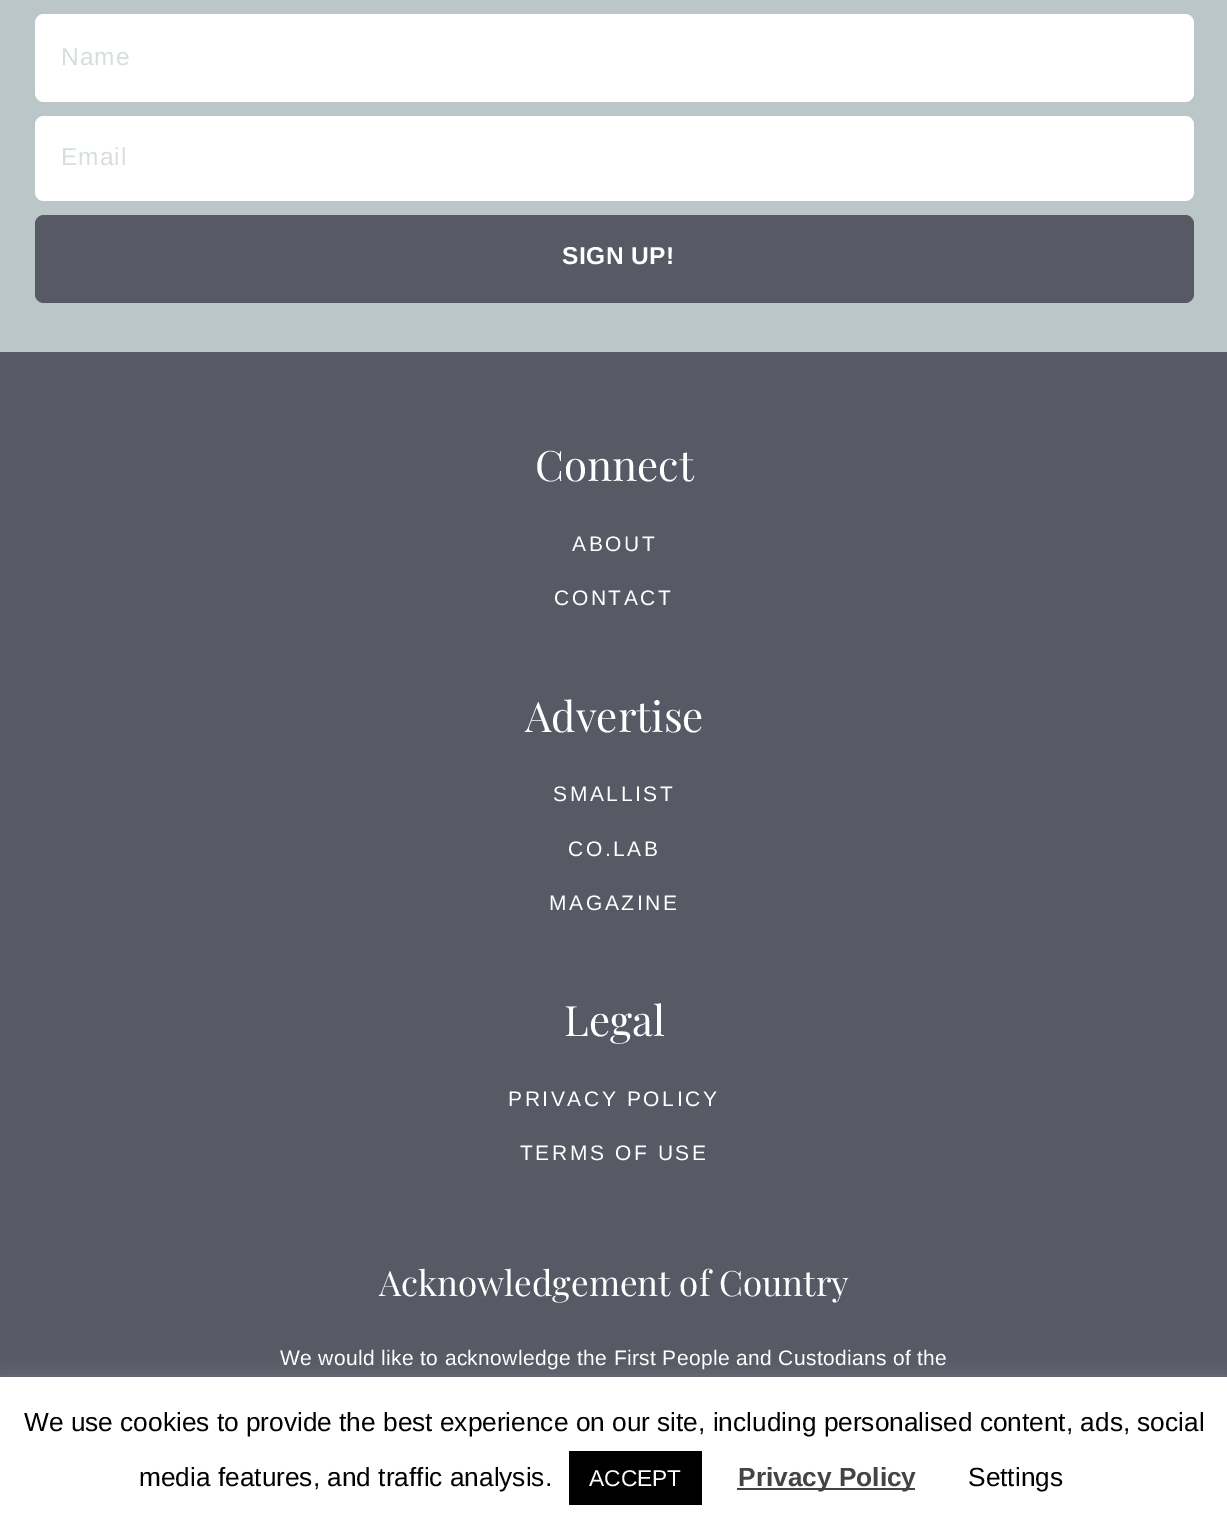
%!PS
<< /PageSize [1227 1534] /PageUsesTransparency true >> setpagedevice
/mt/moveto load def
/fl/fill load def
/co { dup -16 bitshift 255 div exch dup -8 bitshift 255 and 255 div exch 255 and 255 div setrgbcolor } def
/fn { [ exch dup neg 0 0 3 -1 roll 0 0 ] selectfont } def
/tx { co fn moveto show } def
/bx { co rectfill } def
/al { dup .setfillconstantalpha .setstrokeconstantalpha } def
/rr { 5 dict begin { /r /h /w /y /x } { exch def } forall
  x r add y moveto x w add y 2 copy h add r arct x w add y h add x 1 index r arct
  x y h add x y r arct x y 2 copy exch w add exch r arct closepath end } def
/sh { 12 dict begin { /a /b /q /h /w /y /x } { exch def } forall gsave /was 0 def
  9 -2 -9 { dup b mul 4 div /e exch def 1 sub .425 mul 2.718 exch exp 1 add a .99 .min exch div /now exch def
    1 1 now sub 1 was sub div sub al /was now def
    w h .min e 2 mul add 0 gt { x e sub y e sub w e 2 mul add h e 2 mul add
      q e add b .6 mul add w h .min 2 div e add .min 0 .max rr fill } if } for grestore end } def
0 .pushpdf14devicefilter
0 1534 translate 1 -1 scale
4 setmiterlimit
0 0 1227 1534 16#BBC6C9 bx
16#FFFFFF co
35 14 1159 88 9 rr fl
35 116 1159 85 9 rr fl
16#575965 co
35 215 1159 88 9 rr fl
0 352 1227 1025 16#575965 bx
16#ACABAB co
0 1376 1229 157 0 9 .3 sh
0 1377 1227 157 16#FFFFFF bx
569 1451 133 54 16#000000 bx
737 1488 178 2 16#444444 bx
/LiberationSans-Regular 24.5 fn
16#D6DDDF co
61 65 mt 1 0 (Name) ashow
61 165 mt 1 0 (Email) ashow
/LiberationSans-Bold 24.5 fn
16#FFFFFF co
562 264 mt .5 0 (SIGN UP!) ashow
(Connect) 535 481 /PlayfairDisplay-Regular 42 16#FFFFFF tx
/LiberationSans-Regular 21 fn
572 551 mt 2.6 0 (ABOUT) ashow
554 605 mt 2.6 0 (CONTACT) ashow
(Advertise) 525 732 /PlayfairDisplay-Regular 42 16#FFFFFF tx
/LiberationSans-Regular 21 fn
553 801 mt 2.6 0 (SMALLIST) ashow
568 856 mt 2.6 0 (CO.LAB) ashow
549 910 mt 2.6 0 (MAGAZINE) ashow
(Legal) 564 1036 /PlayfairDisplay-Regular 42 16#FFFFFF tx
/LiberationSans-Regular 21 fn
508 1106 mt 2.6 0 (PRIVACY POLICY) ashow
520 1160 mt 2.6 0 (TERMS OF USE) ashow
(Acknowledgement of Country) 379 1296 /PlayfairDisplay-Regular 35 16#FFFFFF tx
/LiberationSans-Regular 21 fn
280 1365 mt .35 0 (We would like to acknowledge the First People and Custodians of the) ashow
(We use cookies to provide the best experience on our site, including personalised content, ads, social) 24 1431 /LiberationSans-Regular 26.25 16#000000 tx
(media features, and traffic analysis.) 139 1486 /LiberationSans-Regular 26.25 16#000000 tx
(ACCEPT) 589 1486 /LiberationSans-Regular 22.75 16#FFFFFF tx
(Privacy Policy) 738 1486 /LiberationSans-Bold 26.25 16#444444 tx
(Settings) 968 1486 /LiberationSans-Regular 26.25 16#000000 tx
.poppdf14devicefilter showpage
